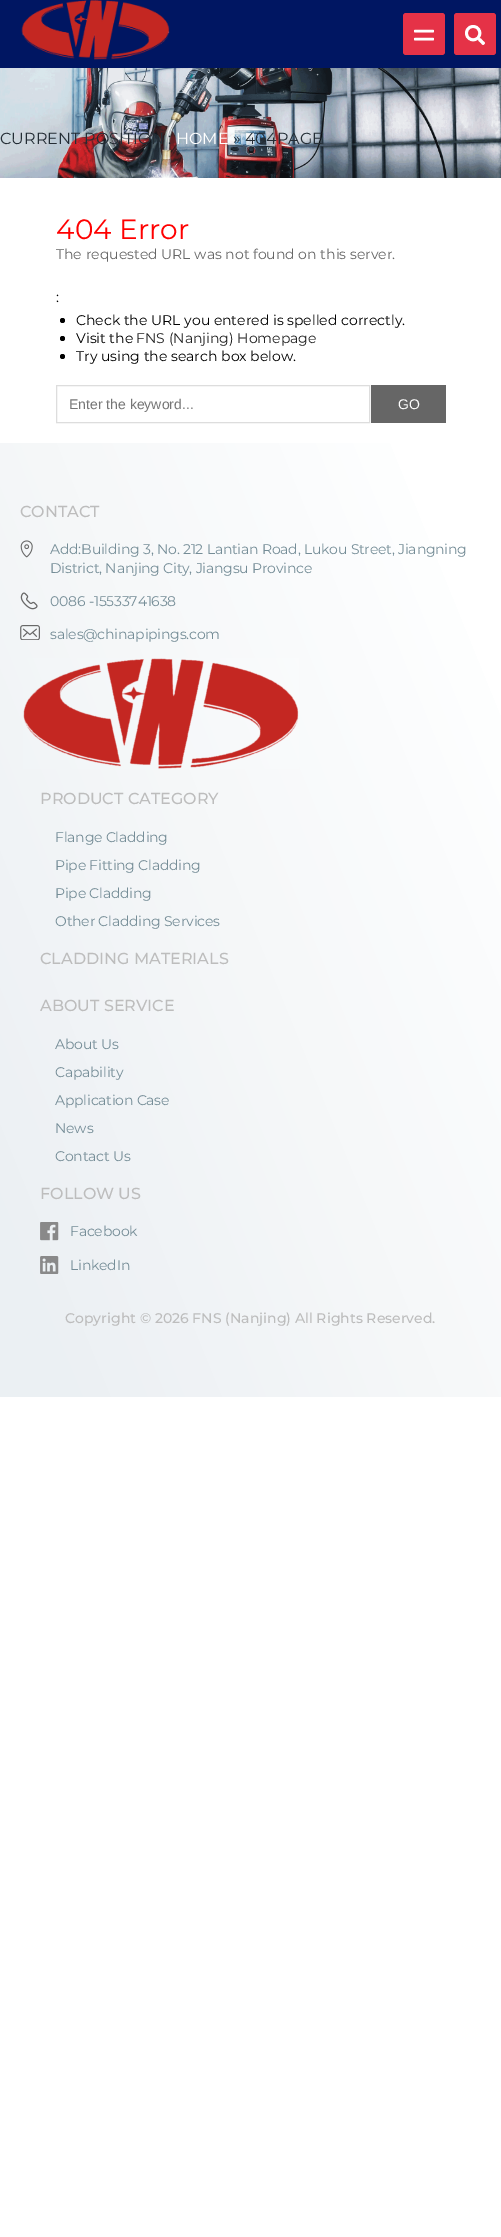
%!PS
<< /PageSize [501 2237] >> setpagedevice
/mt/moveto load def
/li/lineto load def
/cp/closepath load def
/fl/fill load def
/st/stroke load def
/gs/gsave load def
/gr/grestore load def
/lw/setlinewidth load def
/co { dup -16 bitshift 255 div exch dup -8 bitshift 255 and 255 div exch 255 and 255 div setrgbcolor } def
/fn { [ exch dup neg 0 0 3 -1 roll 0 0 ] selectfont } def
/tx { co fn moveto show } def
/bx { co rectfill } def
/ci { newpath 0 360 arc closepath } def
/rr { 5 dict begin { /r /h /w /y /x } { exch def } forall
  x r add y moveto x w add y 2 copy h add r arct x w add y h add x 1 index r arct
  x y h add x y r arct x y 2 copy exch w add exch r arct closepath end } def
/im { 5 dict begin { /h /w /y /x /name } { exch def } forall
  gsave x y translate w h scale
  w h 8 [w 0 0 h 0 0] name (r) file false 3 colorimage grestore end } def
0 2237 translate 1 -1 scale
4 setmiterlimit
0 0 501 2237 16#FFFFFF bx
0 0 501 68 16#001662 bx
(media/1.raw) 21 0 149 60 im
16#E53247 co
403 13 42 42 3 rr fl
gs
414 25 20 20 rectclip
16#FFFFFF co
2.5 lw
1 setlinecap
1 setlinejoin
415 39 mt 433 39 li 415 31 mt 433 31 li st
gr
454 13 42 42 3 rr fl
(media/2.raw) 465 25 20 20 im
(media/3.raw) 0 68 501 110 im
16#000000 co
62.5 320.5 2.5 ci fl
62.5 338.5 2.5 ci fl
62.5 356.5 2.5 ci fl
16#DDDDDD co
56.5 385.5 313 37 rectstroke
371 385 75 38 16#666666 bx
gs 0 443 mt 501 443 li 501 1397 li 0 1397 li cp clip newpath
<< /ShadingType 2 /ColorSpace /DeviceRGB /Coords [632 765 -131 1075] /Extend [true true] /Function << /FunctionType 3 /Domain [0 1] /Functions [<< /FunctionType 2 /Domain [0 1] /C0 [1 1 1] /C1 [1 1 1] /N 1 >> << /FunctionType 2 /Domain [0 1] /C0 [1 1 1] /C1 [.922 .941 .953] /N 1 >> << /FunctionType 2 /Domain [0 1] /C0 [.922 .941 .953] /C1 [.922 .941 .953] /N 1 >>] /Bounds [.1 .94] /Encode [0 1 0 1 0 1] >> >> shfill gr
(media/4.raw) 20 540 13 18 im
(media/5.raw) 20 592 18 18 im
(media/6.raw) 20 625 20 15 im
(media/7.raw) 23 658 276 111 im
(media/8.raw) 40 1222 19 19 im
(media/9.raw) 40 1256 19 18 im
(CURRENT POSITION :) 0 144 /Montserrat-Regular 16 16#242D35 tx
(HOME) 176 144 /Montserrat-Regular 16 16#FFFFFF tx
(» 404PAGE) 233 144 /Montserrat-Regular 16 16#242D35 tx
(404 Error) 56 239 /Montserrat-Regular 28 16#FF0000 tx
(The requested URL was not found on this server.) 56 259 /Montserrat-Regular 14 16#666666 tx
(:) 56 302 /Montserrat-Regular 14 16#000000 tx
(Check the URL you entered is spelled correctly.) 76 325 /Montserrat-Regular 14 16#000000 tx
(Visit the) 76 343 /Montserrat-Regular 14 16#000000 tx
(FNS \(Nanjing\) Homepage) 136 343 /Montserrat-Regular 14 16#222222 tx
(Try using the search box below.) 76 361 /Montserrat-Regular 14 16#000000 tx
(Enter the keyword...) 69 409 /LiberationSans-Regular 14 16#757575 tx
(GO) 398 409 /LiberationSans-Regular 14 16#FFFFFF tx
(CONTACT) 20 517 /Montserrat-Medium 16 16#BDBDBD tx
/Montserrat-Regular 14 fn
16#758D97 co
50 554 mt -.2 0 (Add:Building 3, No. 212 Lantian Road, Lukou Street, Jiangning) ashow
50 573 mt -.2 0 (District, Nanjing City, Jiangsu Province) ashow
50 606 mt -.2 0 (0086 -15533741638) ashow
50 639 mt -.2 0 (sales@chinapipings.com) ashow
(PRODUCT CATEGORY) 40 804 /Montserrat-Medium 16 16#BDBDBD tx
/Montserrat-Regular 14 fn
16#758D97 co
55 842 mt -.2 0 (Flange Cladding) ashow
55 870 mt -.2 0 (Pipe Fitting Cladding) ashow
55 898 mt -.2 0 (Pipe Cladding) ashow
55 926 mt -.2 0 (Other Cladding Services) ashow
(CLADDING MATERIALS) 40 964 /Montserrat-Medium 16 16#BDBDBD tx
(ABOUT SERVICE) 40 1011 /Montserrat-Medium 16 16#BDBDBD tx
/Montserrat-Regular 14 fn
16#758D97 co
55 1049 mt -.2 0 (About Us) ashow
55 1077 mt -.2 0 (Capability) ashow
55 1105 mt -.2 0 (Application Case) ashow
55 1133 mt -.2 0 (News) ashow
55 1161 mt -.2 0 (Contact Us) ashow
(FOLLOW US) 40 1199 /Montserrat-Medium 16 16#BDBDBD tx
/Montserrat-Regular 14 fn
16#758D97 co
70 1236 mt -.2 0 (Facebook) ashow
70 1270 mt -.2 0 (LinkedIn) ashow
(Copyright © 2026 FNS \(Nanjing\) All Rights Reserved.) 65 1323 /Montserrat-Medium 14 16#BDBDBD tx
showpage
